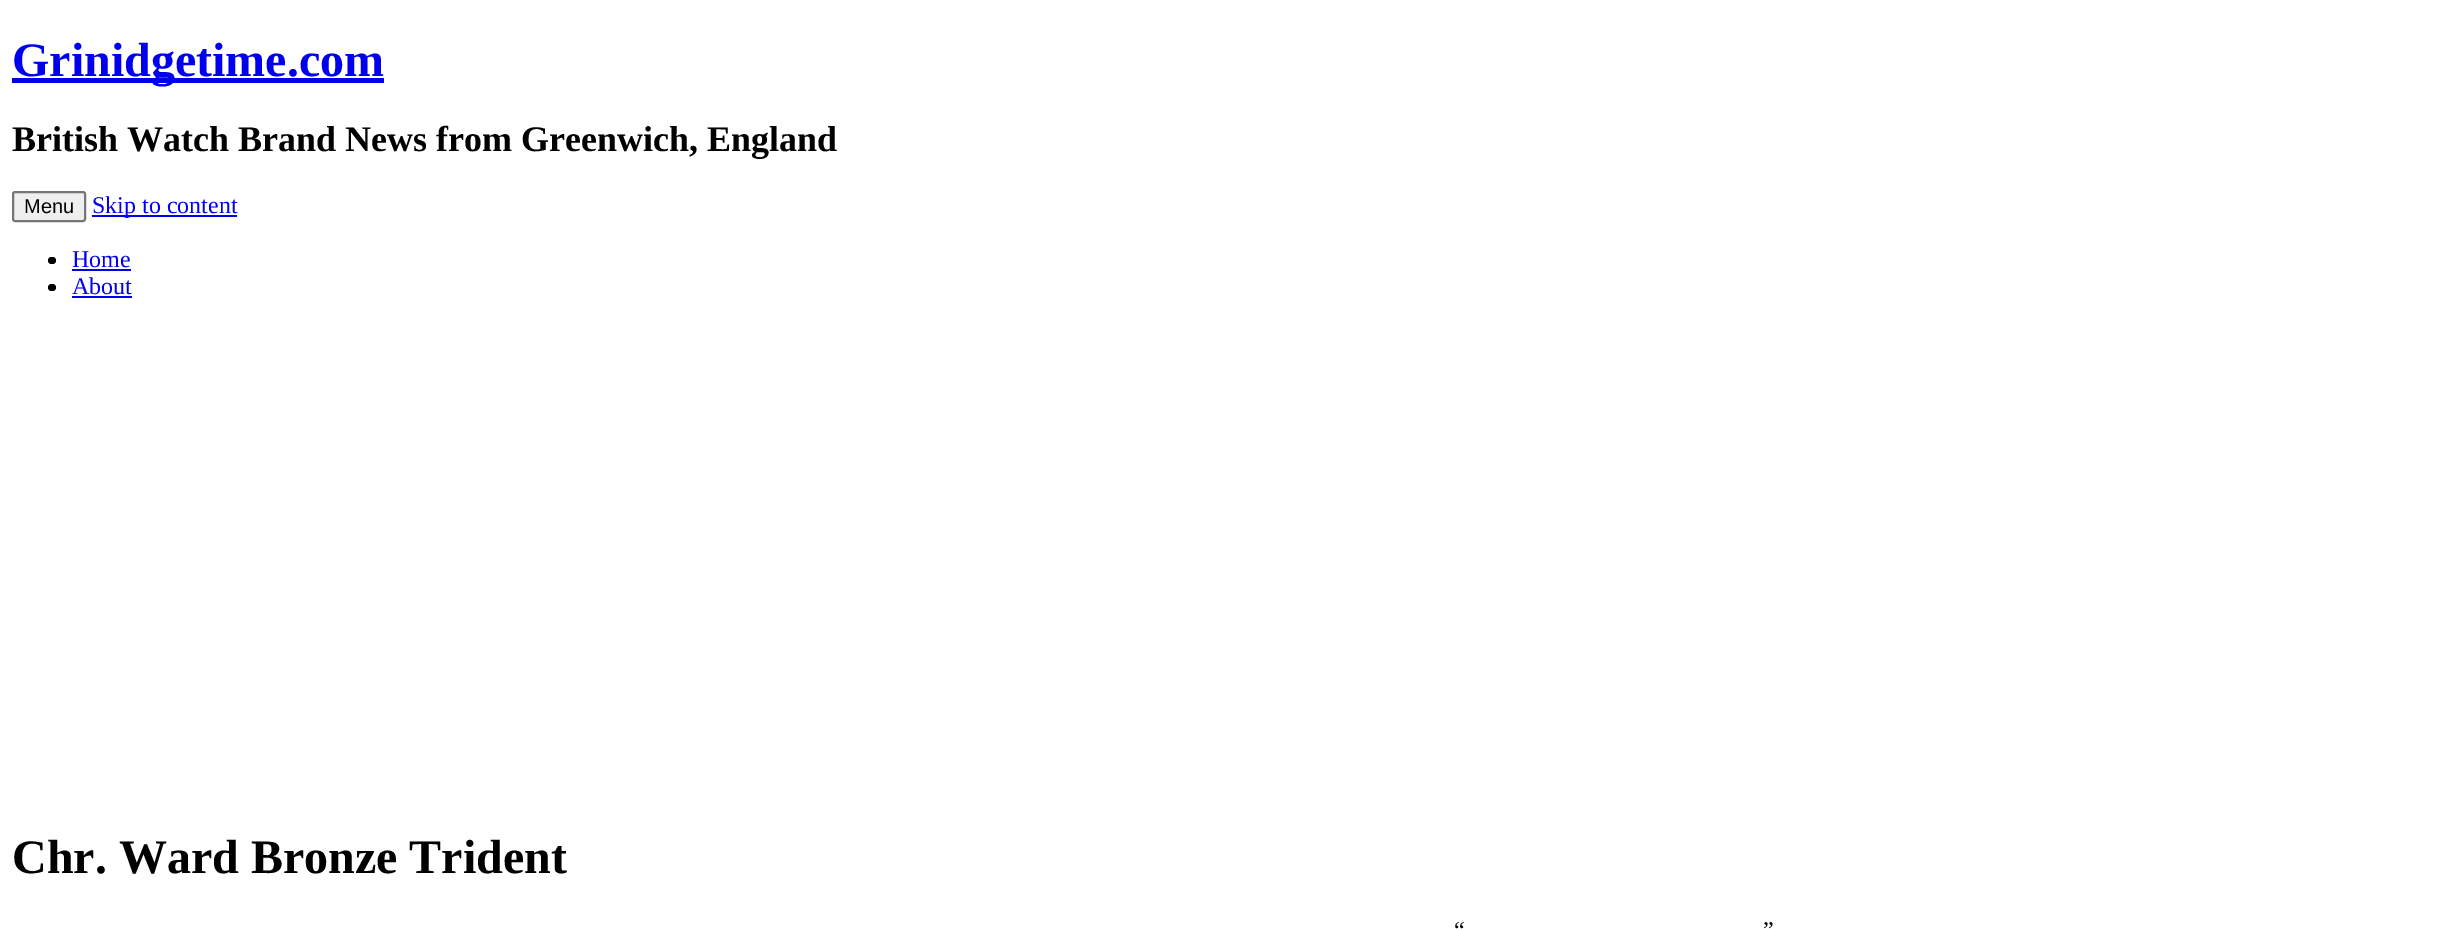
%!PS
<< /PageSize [2440 929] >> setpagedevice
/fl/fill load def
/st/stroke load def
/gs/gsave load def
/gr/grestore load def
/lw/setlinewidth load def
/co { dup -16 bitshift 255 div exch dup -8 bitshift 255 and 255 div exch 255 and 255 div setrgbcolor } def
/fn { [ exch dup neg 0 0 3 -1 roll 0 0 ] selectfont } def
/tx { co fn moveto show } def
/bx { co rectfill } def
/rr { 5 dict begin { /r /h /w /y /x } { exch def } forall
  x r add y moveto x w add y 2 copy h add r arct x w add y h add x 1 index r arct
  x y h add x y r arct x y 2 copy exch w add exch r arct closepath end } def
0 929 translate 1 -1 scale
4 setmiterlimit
0 0 2440 929 16#FFFFFF bx
12 78 372 5 16#0000EE bx
16#EFEFEF co
13 192 72 29 2 rr gs fl gr
16#767676 co
2 lw
st
92 215 145 2 16#0000EE bx
16#000000 co
48 257 8 7 3.5 rr fl
72 269 59 2 16#0000EE bx
16#000000 co
48 284 8 7 3.5 rr fl
72 296 60 2 16#0000EE bx
(Grinidgetime.com) 12 76 /LiberationSerif-Bold 48 16#0000EE tx
(British Watch Brand News from Greenwich, England) 12 151 /LiberationSerif-Bold 36 16#000000 tx
(Menu) 24 213 /LiberationSans-Regular 20 16#000000 tx
(Skip to content) 92 213 /LiberationSerif-Regular 24 16#0000EE tx
(Home) 72 267 /LiberationSerif-Regular 24 16#0000EE tx
(About) 72 294 /LiberationSerif-Regular 24 16#0000EE tx
(Chr. Ward Bronze Trident) 12 873 /LiberationSerif-Bold 48 16#000000 tx
(“) 1454 938 /LiberationSerif-Regular 24 16#000000 tx
(”) 1763 938 /LiberationSerif-Regular 24 16#000000 tx
showpage
